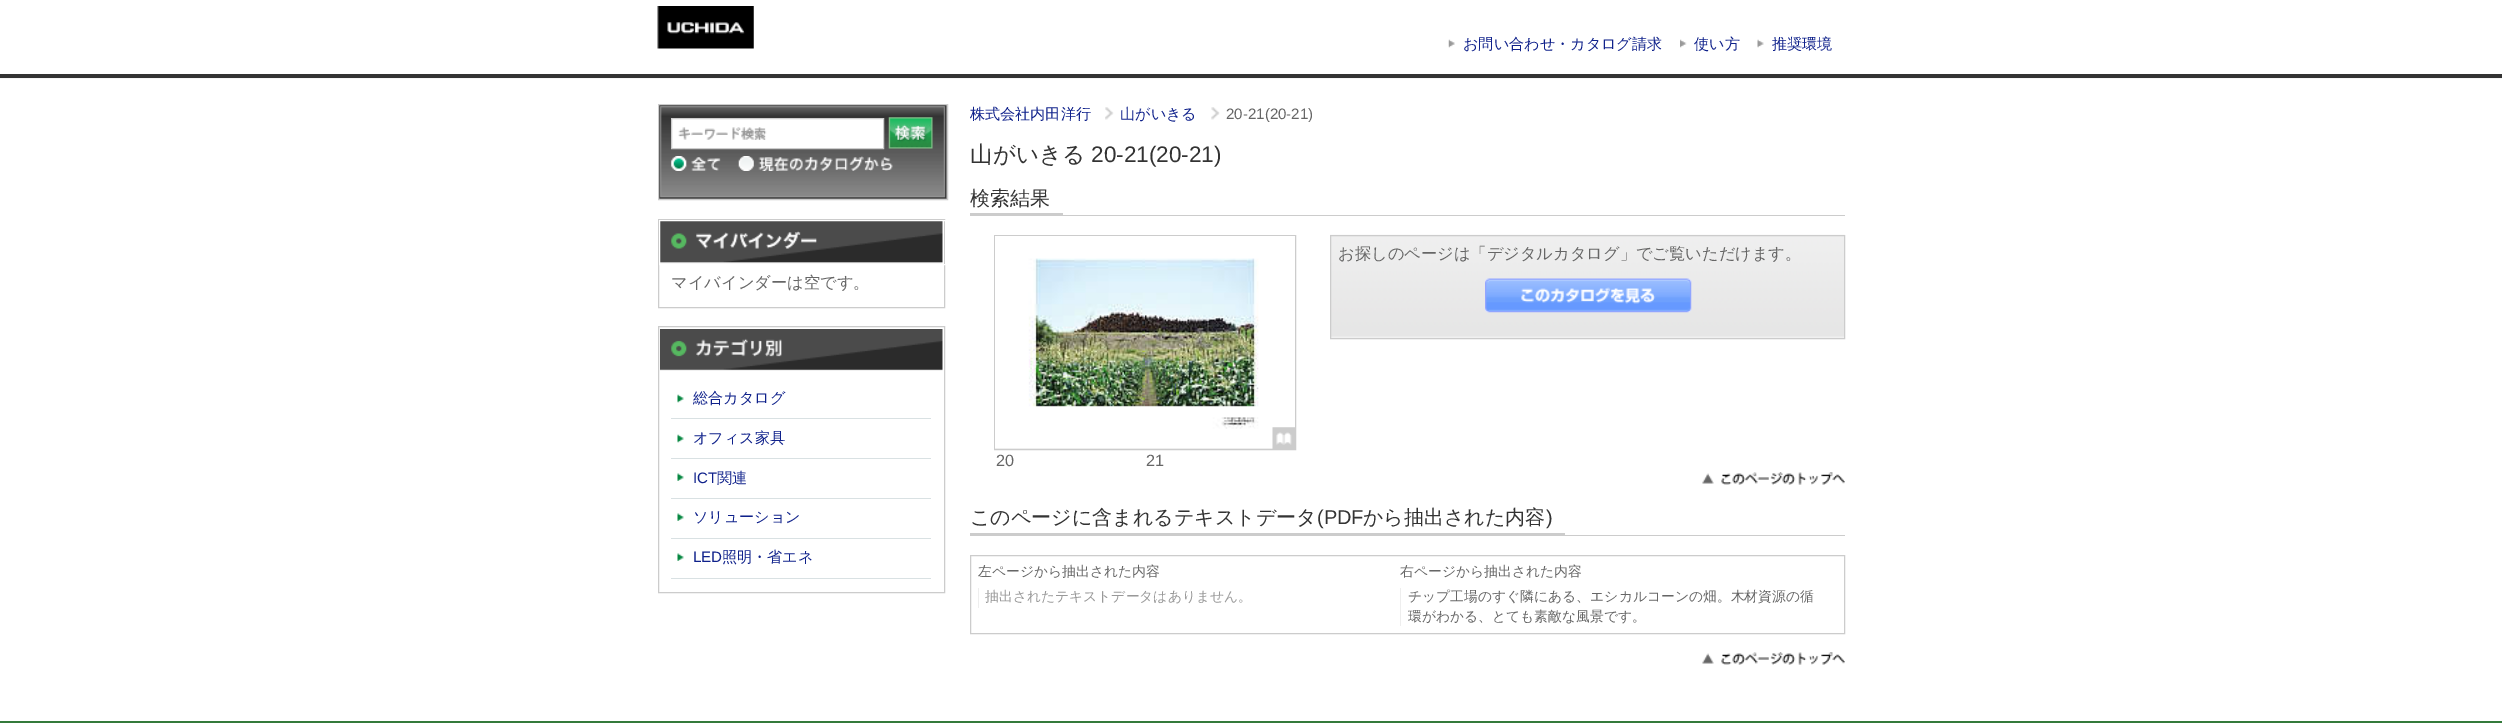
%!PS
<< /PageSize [2502 723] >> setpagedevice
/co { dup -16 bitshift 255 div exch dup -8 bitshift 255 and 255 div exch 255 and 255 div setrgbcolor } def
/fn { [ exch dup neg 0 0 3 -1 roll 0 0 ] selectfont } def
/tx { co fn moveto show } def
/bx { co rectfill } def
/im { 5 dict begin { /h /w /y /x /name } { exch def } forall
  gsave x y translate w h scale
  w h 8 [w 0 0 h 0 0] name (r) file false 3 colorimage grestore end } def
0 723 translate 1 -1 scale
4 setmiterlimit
0 0 2502 723 16#FFFFFF bx
0 78 2502 1 16#F5F5F5 bx
(media/1.raw) 657 6 97 43 im
(media/2.raw) 1448 39 7 9 im
(media/3.raw) 1680 39 7 9 im
(media/4.raw) 1757 39 7 9 im
0 74 2502 4 16#333333 bx
659 105 288 94 16#999999 bx
(media/5.raw) 659 105 288 94 im
16#CCCCCC co
658.5 104.5 289 95 rectstroke
672 119 211 29 16#FFFFFF bx
(media/6.raw) 678 127 89 13 im
16#CCCCCC co
671.5 118.5 212 30 rectstroke
(media/7.raw) 888 117 45 32 im
(media/8.raw) 671 156 50 15 im
(media/9.raw) 738 156 155 15 im
658.5 219.5 286 88 rectstroke
(media/10.raw) 660 221 283 43 im
16#FFFFFF co
659.5 220.5 286 44 rectstroke
(media/11.raw) 1105 107 9 13 im
(media/12.raw) 1211 107 9 13 im
1063 215 782 1 16#CCCCCC bx
970 213 93 3 16#CCCCCC bx
1331 337 513 1 16#F0F0F0 bx
(media/13.raw) 1330 234 515 103 im
16#CCCCCC co
1330.5 235.5 514 103 rectstroke
(media/14.raw) 1485 278 207 35 im
995 448 278 1 16#DDDDDD bx
16#CCCCCC co
994.5 235.5 301 214 rectstroke
(media/15.raw) 995 236 150 213 im
(media/16.raw) 1145 236 150 213 im
(media/17.raw) 1272 427 23 22 im
(media/18.raw) 1702 472 143 13 im
1565 535 280 1 16#CCCCCC bx
970 533 595 3 16#CCCCCC bx
970.5 555.5 874 78 rectstroke
978 588 1 20 16#EEEEEE bx
1400 588 1 38 16#EEEEEE bx
(media/18.raw) 1702 652 143 13 im
16#CCCCCC co
658.5 326.5 286 266 rectstroke
(media/19.raw) 660 329 283 42 im
(media/20.raw) 677 394 7 9 im
671 418 260 1 16#D9E1E3 bx
(media/20.raw) 677 434 7 9 im
671 458 260 1 16#D9E1E3 bx
(media/21.raw) 677 473 7 8 im
671 498 260 1 16#D9E1E3 bx
(media/21.raw) 677 513 7 8 im
671 538 260 1 16#D9E1E3 bx
(media/21.raw) 677 553 7 8 im
671 578 260 1 16#D9E1E3 bx
0 721 2502 2 16#347A3B bx
(お問い合わせ・カタログ請求) 1463 49 /WenQuanYiZenHei-Medium 15.1 16#0F218B tx
(使い方) 1694 49 /WenQuanYiZenHei-Medium 15.1 16#0F218B tx
(推奨環境) 1772 49 /WenQuanYiZenHei-Medium 15.1 16#0F218B tx
(マイバインダーは空です。) 671 288 /WenQuanYiZenHei-Medium 16.25 16#666666 tx
(株式会社内田洋行) 970 119 /WenQuanYiZenHei-Medium 15.1 16#0F218B tx
(山がいきる) 1120 119 /WenQuanYiZenHei-Medium 15.1 16#0F218B tx
(20-21\(20-21\)) 1226 119 /LiberationSans-Regular 15.1 16#666666 tx
(山がいきる) 970 162 /WenQuanYiZenHei-Medium 22.5 16#333333 tx
(20-21\(20-21\)) 1091 162 /LiberationSans-Regular 22.5 16#333333 tx
(検索結果) 970 205 /WenQuanYiZenHei-Medium 20 16#333333 tx
(お探しのページは「デジタルカタログ」でご覧いただけます。) 1338 259 /WenQuanYiZenHei-Medium 16.25 16#666666 tx
(20) 996 466 /LiberationSans-Regular 16.25 16#666666 tx
(21) 1146 466 /LiberationSans-Regular 16.25 16#666666 tx
(このページに含まれるテキストデータ) 970 524 /WenQuanYiZenHei-Medium 20 16#333333 tx
(\(PDF) 1317 524 /LiberationSans-Regular 20 16#333333 tx
(から抽出された内容) 1363 524 /WenQuanYiZenHei-Medium 20 16#333333 tx
(\)) 1546 524 /LiberationSans-Regular 20 16#333333 tx
(左ページから抽出された内容) 978 576 /WenQuanYiZenHei-Medium 13.8 16#666666 tx
(抽出されたテキストデータはありません。) 985 601 /WenQuanYiZenHei-Medium 13.8 16#999999 tx
(右ページから抽出された内容) 1400 576 /WenQuanYiZenHei-Medium 13.8 16#666666 tx
(チップ工場のすぐ隣にある、エシカルコーンの畑。木材資源の循) 1408 601 /WenQuanYiZenHei-Medium 13.8 16#666666 tx
(環がわかる、とても素敵な風景です。) 1408 621 /WenQuanYiZenHei-Medium 13.8 16#666666 tx
(総合カタログ) 693 403 /WenQuanYiZenHei-Medium 15.1 16#0F218B tx
(オフィス家具) 693 443 /WenQuanYiZenHei-Medium 15.1 16#0F218B tx
(ICT) 693 483 /LiberationSans-Regular 15.1 16#0F218B tx
(関連) 717 483 /WenQuanYiZenHei-Medium 15.1 16#0F218B tx
(ソリューション) 693 522 /WenQuanYiZenHei-Medium 15.1 16#0F218B tx
(LED) 693 562 /LiberationSans-Regular 15.1 16#0F218B tx
(照明・省エネ) 722 562 /WenQuanYiZenHei-Medium 15.1 16#0F218B tx
showpage
